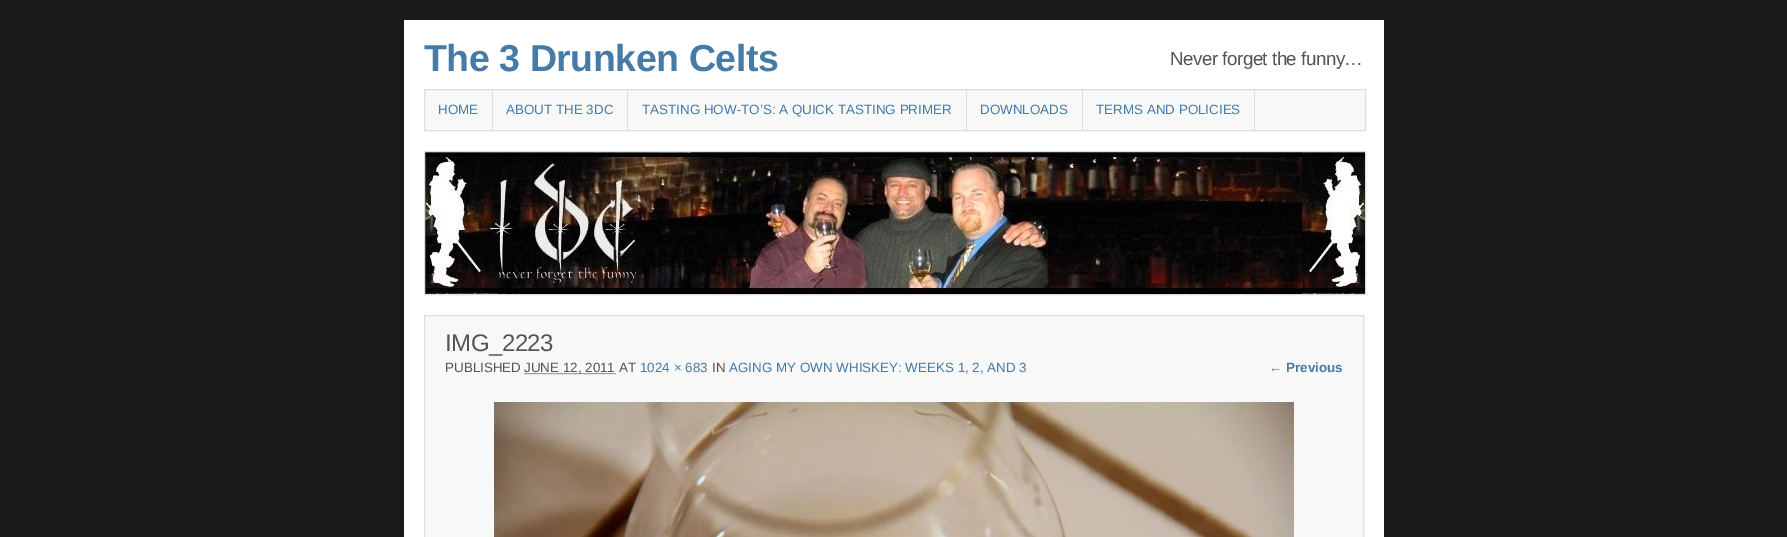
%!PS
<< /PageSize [1787 537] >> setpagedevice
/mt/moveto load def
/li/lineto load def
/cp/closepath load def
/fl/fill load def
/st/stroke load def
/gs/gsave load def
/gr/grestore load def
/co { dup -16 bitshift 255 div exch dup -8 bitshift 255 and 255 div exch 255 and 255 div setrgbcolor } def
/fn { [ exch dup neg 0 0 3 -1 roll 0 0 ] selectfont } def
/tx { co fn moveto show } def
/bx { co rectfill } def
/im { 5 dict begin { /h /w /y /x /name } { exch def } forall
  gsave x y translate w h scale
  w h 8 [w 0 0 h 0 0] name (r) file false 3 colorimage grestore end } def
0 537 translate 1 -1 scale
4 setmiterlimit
0 0 1787 537 16#1A1A1A bx
404 20 980 517 16#FFFFFF bx
16#F8F8F8 co
424.5 89.5 mt 1365.5 89.5 li 1365.5 130.5 li 424.5 130.5 li cp gs fl gr
16#DDDDDD co
st
492 90 1 40 16#DDDDDD bx
627 90 1 40 16#DDDDDD bx
966 90 1 40 16#DDDDDD bx
1082 90 1 40 16#DDDDDD bx
1254 90 1 40 16#DDDDDD bx
(media/1.raw) 425 152 940 142 im
424.5 151.5 941 143 rectstroke
16#F8F8F8 co
424.5 315.5 mt 1363.5 315.5 li 1363.5 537.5 li 424.5 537.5 li cp gs fl gr
16#DDDDDD co
st
16#555555 co
[1 1] 0 setdash
524.5 373.5 mt 615.5 373.5 li st
(media/2.raw) 494 402 800 135 im
/LiberationSans-Bold 37.6 fn
16#467AA7 co
424 71 mt -.5 0 (The 3 Drunken Celts) ashow
/LiberationSans-Regular 18.75 fn
16#555555 co
1170 65 mt -.5 0 (Never forget the funny…) ashow
(HOME) 438 114 /LiberationSans-Regular 13.4 16#467AA7 tx
(ABOUT THE 3DC) 506 114 /LiberationSans-Regular 13.4 16#467AA7 tx
(TASTING HOW-TO’S: A QUICK TASTING PRIMER) 642 114 /LiberationSans-Regular 13.4 16#467AA7 tx
(DOWNLOADS) 980 114 /LiberationSans-Regular 13.4 16#467AA7 tx
(TERMS AND POLICIES) 1096 114 /LiberationSans-Regular 13.4 16#467AA7 tx
/LiberationSans-Regular 24 fn
16#555555 co
445 351 mt -.5 0 (IMG_2223) ashow
(PUBLISHED) 445 372 /LiberationSans-Regular 13.4 16#555555 tx
(JUNE 12, 2011 AT) 524 372 /LiberationSans-Regular 13.4 16#555555 tx
(1024 × 683) 640 372 /LiberationSans-Regular 13.4 16#467AA7 tx
(IN) 712 372 /LiberationSans-Regular 13.4 16#555555 tx
(AGING MY OWN WHISKEY: WEEKS 1, 2, AND 3) 729 372 /LiberationSans-Regular 13.4 16#467AA7 tx
(← Previous) 1269 372 /LiberationSans-Bold 13.4 16#467AA7 tx
showpage
